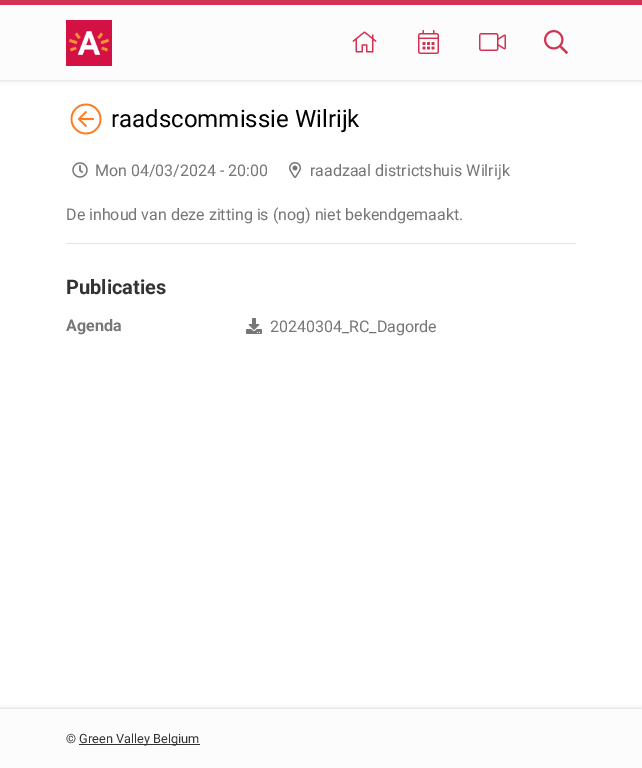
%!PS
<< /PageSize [642 768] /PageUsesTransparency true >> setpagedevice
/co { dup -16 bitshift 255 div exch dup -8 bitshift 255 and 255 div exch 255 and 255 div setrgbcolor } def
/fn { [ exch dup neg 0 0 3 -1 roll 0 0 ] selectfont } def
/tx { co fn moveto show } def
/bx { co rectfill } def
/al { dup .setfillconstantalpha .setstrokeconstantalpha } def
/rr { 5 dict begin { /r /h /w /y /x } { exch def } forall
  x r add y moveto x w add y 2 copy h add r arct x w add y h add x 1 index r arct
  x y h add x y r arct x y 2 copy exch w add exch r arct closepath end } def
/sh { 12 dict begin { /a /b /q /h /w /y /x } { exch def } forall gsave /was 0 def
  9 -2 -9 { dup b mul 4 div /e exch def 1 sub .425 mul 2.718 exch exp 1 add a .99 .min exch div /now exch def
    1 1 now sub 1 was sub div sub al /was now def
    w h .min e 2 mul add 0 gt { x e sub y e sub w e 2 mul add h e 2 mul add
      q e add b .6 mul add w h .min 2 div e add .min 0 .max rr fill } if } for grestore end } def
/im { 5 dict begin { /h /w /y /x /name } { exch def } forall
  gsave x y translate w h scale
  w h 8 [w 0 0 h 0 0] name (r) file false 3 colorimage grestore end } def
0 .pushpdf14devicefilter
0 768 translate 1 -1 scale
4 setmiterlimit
0 0 642 768 16#FFFFFF bx
16#D1D1D1 co
0 0 642 80 0 2.5 1 sh
0 5 642 75 16#FCFCFC bx
0 0 642 5 16#D33152 bx
(media/1.raw) 66 20 46 46 im
(media/2.raw) 352 31 25 22 im
(media/3.raw) 418 30 21 24 im
(media/4.raw) 479 33 27 18 im
(media/5.raw) 544 30 24 24 im
(media/6.raw) 70 103 32 32 im
(media/7.raw) 72 162 16 16 im
(media/8.raw) 289 162 12 16 im
66 243 510 1 16#E6E6E6 bx
(media/9.raw) 246 318 16 16 im
16#D1D1D1 co
0 709 642 59 0 2.5 1 sh
0 709 642 59 16#FCFCFC bx
79 744 121 1 16#333333 bx
(raadscommissie Wilrijk) 111 127 /Roboto-Regular 24 16#000000 tx
(Mon 04/03/2024 - 20:00) 95 176 /Roboto-Regular 16 16#767676 tx
(raadzaal districtshuis Wilrijk) 310 176 /Roboto-Regular 16 16#767676 tx
(De inhoud van deze zitting is \(nog\) niet bekendgemaakt.) 66 220 /Roboto-Regular 16 16#767676 tx
(Publicaties) 66 294 /Roboto-Bold 20 16#333333 tx
(Agenda) 66 331 /Roboto-Bold 16 16#767676 tx
(20240304_RC_Dagorde) 270 332 /Roboto-Regular 16 16#767676 tx
(©) 66 743 /Roboto-Regular 12.75 16#333333 tx
(Green Valley Belgium) 79 743 /Roboto-Regular 12.75 16#333333 tx
.poppdf14devicefilter showpage
